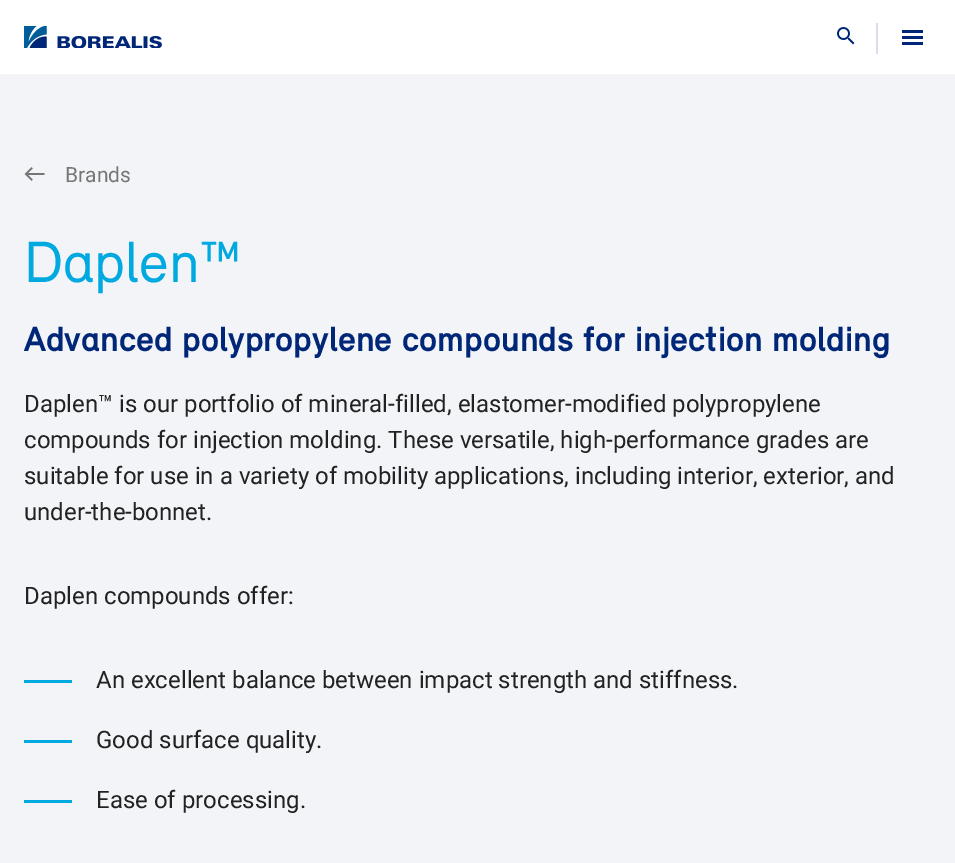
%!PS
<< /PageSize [955 863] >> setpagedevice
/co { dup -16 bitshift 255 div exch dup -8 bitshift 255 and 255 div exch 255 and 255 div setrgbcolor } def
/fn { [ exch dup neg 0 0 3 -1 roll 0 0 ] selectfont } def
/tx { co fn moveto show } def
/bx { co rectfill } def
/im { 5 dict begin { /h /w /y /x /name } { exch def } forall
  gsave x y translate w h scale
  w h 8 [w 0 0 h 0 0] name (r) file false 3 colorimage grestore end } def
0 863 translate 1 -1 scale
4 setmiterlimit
0 0 955 863 16#F2F4F8 bx
0 0 955 74 16#FFFFFF bx
0 74 955 2 16#F4F4F4 bx
(media/1.raw) 24 26 138 22 im
876 23 2 31 16#D9DEEA bx
(media/2.raw) 837 27 18 18 im
902 30 21 3 16#002677 bx
902 36 21 3 16#002677 bx
902 42 21 3 16#002677 bx
(media/3.raw) 24 167 21 14 im
24 680 48 3 16#00A9E0 bx
24 740 48 3 16#00A9E0 bx
24 800 48 3 16#00A9E0 bx
(Brands) 65 182 /Roboto-Regular 21 16#767676 tx
(Daplen™) 24 282 /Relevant-Regular 60 16#00A9E0 tx
(Advanced polypropylene compounds for injection molding) 24 351 /Relevant-Bold 36 16#002677 tx
(Daplen™ is our portfolio of mineral-filled, elastomer-modified polypropylene) 24 412 /Roboto-Regular 24 16#222222 tx
(compounds for injection molding. These versatile, high-performance grades are) 24 448 /Roboto-Regular 24 16#222222 tx
(suitable for use in a variety of mobility applications, including interior, exterior, and) 24 484 /Roboto-Regular 24 16#222222 tx
(under-the-bonnet.) 24 520 /Roboto-Regular 24 16#222222 tx
(Daplen compounds offer:) 24 604 /Roboto-Regular 24 16#222222 tx
(An excellent balance between impact strength and stiffness.) 96 688 /Roboto-Regular 24 16#222222 tx
(Good surface quality.) 96 748 /Roboto-Regular 24 16#222222 tx
(Ease of processing.) 96 808 /Roboto-Regular 24 16#222222 tx
showpage
